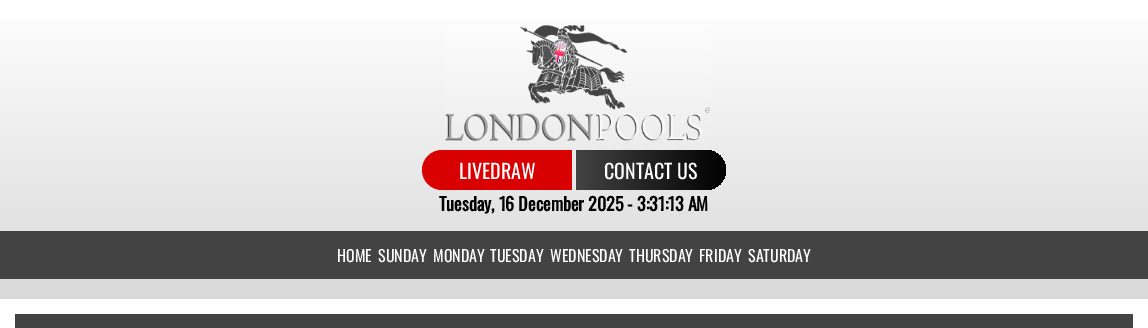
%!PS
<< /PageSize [1148 328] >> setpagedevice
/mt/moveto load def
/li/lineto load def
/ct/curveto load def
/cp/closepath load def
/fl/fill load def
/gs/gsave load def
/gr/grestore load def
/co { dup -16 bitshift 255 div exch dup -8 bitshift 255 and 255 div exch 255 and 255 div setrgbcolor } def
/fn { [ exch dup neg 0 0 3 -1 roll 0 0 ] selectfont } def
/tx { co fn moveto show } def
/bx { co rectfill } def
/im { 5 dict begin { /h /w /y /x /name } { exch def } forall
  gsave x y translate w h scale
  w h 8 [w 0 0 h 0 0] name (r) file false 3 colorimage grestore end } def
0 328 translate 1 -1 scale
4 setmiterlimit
0 0 1148 328 16#FFFFFF bx
gs 0 20 mt 1148 20 li 1148 299 li 0 299 li cp clip newpath
<< /ShadingType 2 /ColorSpace /DeviceRGB /Coords [574 0 574 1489] /Extend [true true] /Function << /FunctionType 2 /Domain [0 1] /C0 [1 1 1] /C1 [.263 .263 .263] /N 1 >> >> shfill gr
(media/1.raw) 445 25 266 117 im
16#D80001 co
442 150 mt 572 150 li 572 190 li 442 190 li 431 190 422 181 422 170 ct 422 159 431 150 442 150 ct cp fl
gs 576 150 mt 706 150 li 717 150 726 159 726 170 ct 726 181 717 190 706 190 ct 576 190 li cp clip newpath
<< /ShadingType 2 /ColorSpace /DeviceRGB /Coords [576 170 726 170] /Extend [true true] /Function << /FunctionType 2 /Domain [0 1] /C0 [.263 .263 .263] /C1 [0 0 0] /N 1 >> >> shfill gr
0 231 1148 48 16#434343 bx
15 314 1118 14 16#434343 bx
(LIVEDRAW) 459 179 /Oswald-Regular 20 16#FFFFFF tx
(CONTACT US) 604 179 /Oswald-Regular 20 16#FFFFFF tx
(Tuesday, 16 December 2025 - 3:31:13 AM) 439 211 /Oswald-Bold 18 16#000000 tx
(HOME) 337 262 /Oswald-Regular 16 16#FFFFFF tx
(SUNDAY) 378 262 /Oswald-Regular 16 16#FFFFFF tx
(MONDAY) 433 262 /Oswald-Regular 16 16#FFFFFF tx
(TUESDAY) 490 262 /Oswald-Regular 16 16#FFFFFF tx
(WEDNESDAY) 550 262 /Oswald-Regular 16 16#FFFFFF tx
(THURSDAY) 629 262 /Oswald-Regular 16 16#FFFFFF tx
(FRIDAY) 699 262 /Oswald-Regular 16 16#FFFFFF tx
(SATURDAY) 748 262 /Oswald-Regular 16 16#FFFFFF tx
showpage
